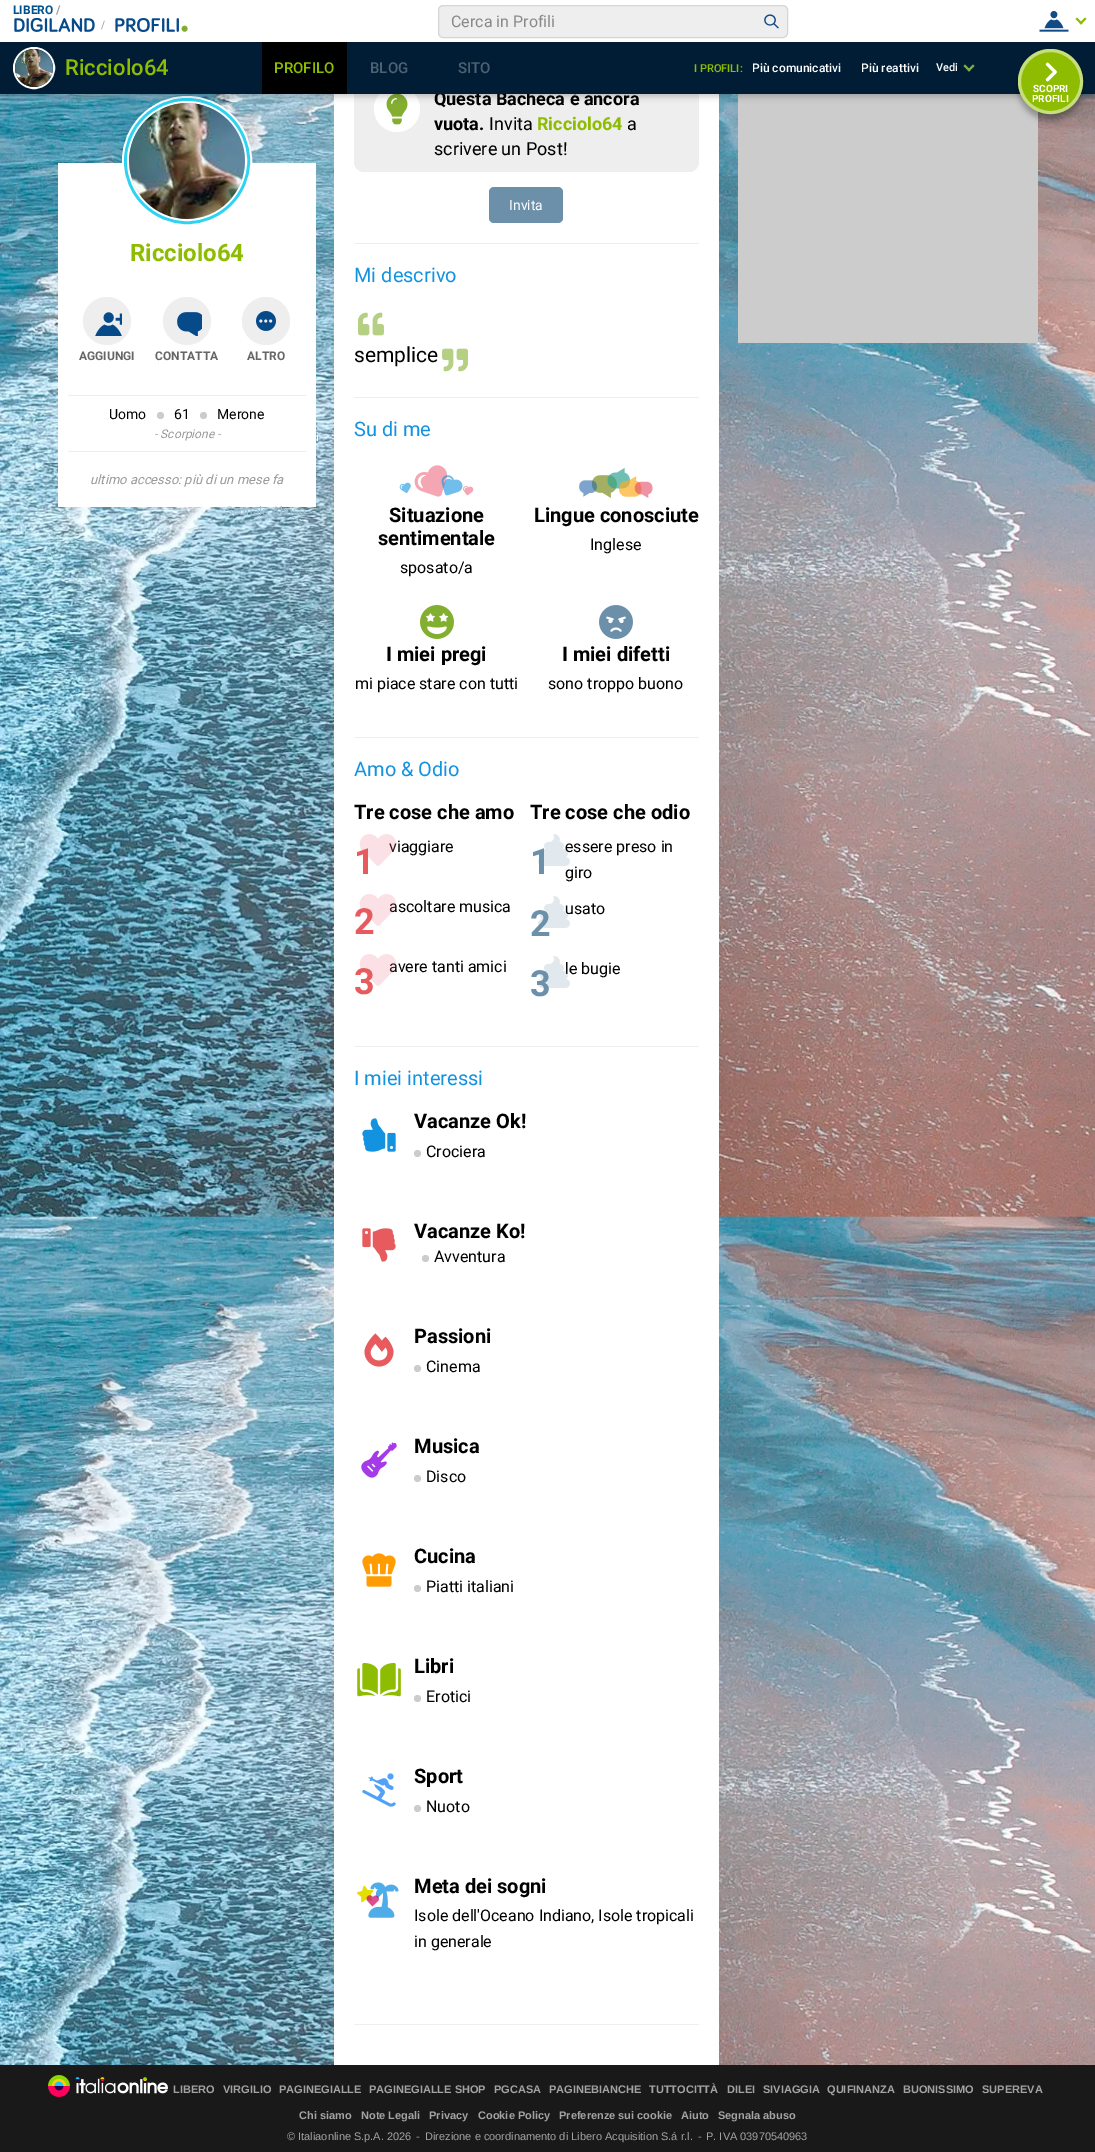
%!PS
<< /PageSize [1095 2152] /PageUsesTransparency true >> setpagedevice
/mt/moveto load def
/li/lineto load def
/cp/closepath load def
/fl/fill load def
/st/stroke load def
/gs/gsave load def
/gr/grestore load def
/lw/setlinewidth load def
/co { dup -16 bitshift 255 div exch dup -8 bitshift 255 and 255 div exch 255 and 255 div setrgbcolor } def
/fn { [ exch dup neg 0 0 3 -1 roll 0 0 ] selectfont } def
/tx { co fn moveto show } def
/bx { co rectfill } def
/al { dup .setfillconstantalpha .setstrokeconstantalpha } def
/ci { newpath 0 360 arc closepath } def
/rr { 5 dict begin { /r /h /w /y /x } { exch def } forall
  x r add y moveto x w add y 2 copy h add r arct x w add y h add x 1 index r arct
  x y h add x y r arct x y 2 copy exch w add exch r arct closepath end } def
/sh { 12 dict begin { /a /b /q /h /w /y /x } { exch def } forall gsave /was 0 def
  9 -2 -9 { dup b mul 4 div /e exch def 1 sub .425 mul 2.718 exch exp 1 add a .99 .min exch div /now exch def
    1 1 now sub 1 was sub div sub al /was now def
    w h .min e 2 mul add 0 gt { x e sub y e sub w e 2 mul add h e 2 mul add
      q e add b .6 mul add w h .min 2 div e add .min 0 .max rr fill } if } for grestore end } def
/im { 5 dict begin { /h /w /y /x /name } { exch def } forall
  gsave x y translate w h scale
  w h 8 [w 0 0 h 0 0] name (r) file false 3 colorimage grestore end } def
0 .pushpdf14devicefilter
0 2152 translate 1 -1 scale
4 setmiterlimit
0 0 1095 2152 16#FFFFFF bx
(media/1.raw) 0 94 1095 1971 im
58 163 258 344 16#FFFFFF bx
7 lw
187 161 61.5 ci st
16#2ED2F2 co
5 lw
187 161 60.5 ci st
16#FFFFFF co
2 lw
187 161 59 ci st
(media/9.raw) 129 103 116 116 im
334 94 385 1971 16#FFFFFF bx
16#EEEEEE co
354 76 345 96 10 rr fl
16#FFFFFF co
397 109 23 ci fl
(media/13.raw) 386 94 22 31 im
738 94 300 249 16#CCCCCC bx
16#000000 co
0 3 1095 94 0 3 .2 sh
0 0 1095 42 16#FFFFFF bx
16#EEEEEE co
438.5 5.5 349 32 4.5 rr gs fl gr
16#D5D5D5 co
1 lw
st
(media/2.raw) 764 14 15 15 im
(media/3.raw) 1039 10 30 22 im
16#8EBC00 co
1085 17.5 mt 1086.5 19 li 1081 24.5 li 1079.5 23 li cp fl
1077 17.5 mt 1082.5 23 li 1081 24.5 li 1075.5 19 li cp fl
(media/4.raw) 14 18 81 14 im
(media/5.raw) 101 20 4 10 im
(media/6.raw) 115 18 73 14 im
16#EEEEEE co
107 321 24 ci fl
(media/10.raw) 95 312 27 24 im
187 321 24 ci fl
(media/11.raw) 177 312 25 24 im
266 321 24 ci fl
(media/12.raw) 256 311 20 20 im
68 395 238 1 16#EEEEEE bx
16#CCCCCC co
160.5 415.5 3.5 ci fl
203.5 415.5 3.5 ci fl
68 451 238 1 16#EEEEEE bx
354 243 345 1 16#EEEEEE bx
16#6C90AA co
489 187 74 36 5 rr fl
354 397 345 1 16#EEEEEE bx
(media/14.raw) 358 312 26 24 im
(media/15.raw) 442 348 26 24 im
354 737 345 1 16#EEEEEE bx
(media/16.raw) 399 465 75 32 im
(media/17.raw) 579 467 74 31 im
(media/18.raw) 420 605 34 34 im
(media/19.raw) 599 605 34 34 im
354 1046 345 1 16#EEEEEE bx
354 2024 345 1 16#EEEEEE bx
(media/25.raw) 362 1118 34 34 im
16#CCCCCC co
417.5 1153.5 3.5 ci fl
(media/26.raw) 362 1228 34 34 im
425.5 1258.5 3.5 ci fl
(media/27.raw) 364 1333 30 34 im
417.5 1368.5 3.5 ci fl
(media/28.raw) 361 1442 36 36 im
417.5 1478.5 3.5 ci fl
(media/29.raw) 362 1553 34 34 im
417.5 1588.5 3.5 ci fl
(media/30.raw) 357 1663 44 34 im
417.5 1698.5 3.5 ci fl
(media/31.raw) 362 1773 34 34 im
417.5 1808.5 3.5 ci fl
(media/32.raw) 357 1882 42 36 im
0 2065 1095 87 16#191919 bx
(media/33.raw) 48 2075 120 22 im
(LIBERO) 13 14 /Roboto-Bold 12 16#00528F tx
(/) 56 14 /Roboto-Bold 12 16#999999 tx
(Cerca in Profili) 451 27 /Roboto-Regular 16 16#898989 tx
(Ricciolo64) 130 261 /Roboto-Bold 24 16#8EBC00 tx
(AGGIUNGI) 79 360 /Roboto-Bold 12 16#666666 tx
(CONTATTA) 155 360 /Roboto-Bold 12 16#666666 tx
(ALTRO) 247 360 /Roboto-Bold 12 16#666666 tx
(i) 316 441 /Roboto-Regular 12 16#FFFFFF tx
(Segnala Abuso) 226 515 /Roboto-Regular 12 16#9DBFD0 tx
(Uomo) 109 419 /Roboto-Regular 14 16#000000 tx
(61) 174 419 /Roboto-Regular 14 16#000000 tx
(Merone) 217 419 /Roboto-Regular 14 16#000000 tx
(- Scorpione -) 154 438 /Roboto-Italic 12 16#999999 tx
(ultimo accesso: più di un mese fa) 90 484 /Roboto-Italic 13 16#999999 tx
(Questa Bacheca è ancora) 434 105 /Roboto-Bold 18 16#000000 tx
0 42 1095 52 16#001D35 bx
16#000000 co
1018 55 65 65 32.5 3 .3 sh
16#8EBC00 co
1050.5 81.5 32.5 ci fl
0.5 al
16#FFFFFF co
3 lw
1050.5 81.5 31 ci st
1 al
(media/8.raw) 1045 62 12 20 im
(PROFILI) 1032 102 /Roboto-Bold 10 16#FFFFFF tx
(SCOPRI) 1033 92 /Roboto-Bold 10 16#FFFFFF tx
16#7EB144 co
973 64.5 mt 974.5 66 li 969 71.5 li 967.5 70 li cp fl
965 64.5 mt 970.5 70 li 969 71.5 li 963.5 66 li cp fl
(Vedi) 936 71 /Roboto-Medium 11 16#FFFFFF tx
(Più reattivi) 861 72 /Roboto-Medium 12 16#FFFFFF tx
(Più comunicativi) 752 72 /Roboto-Medium 12 16#FFFFFF tx
(I PROFILI:) 694 72 /Roboto-Medium 11 16#8EBC00 tx
(SITO) 458 73 /Roboto-Medium 15 16#4D6172 tx
(BLOG) 370 73 /Roboto-Medium 15 16#4D6172 tx
262 42 85 52 16#000000 bx
(PROFILO) 274 73 /Roboto-Medium 15 16#8EBC00 tx
(Ricciolo64) 65 75 /Roboto-Medium 22 16#8EBC00 tx
16#FFFFFF co
2 lw
34 68 20 ci st
(media/7.raw) 15 49 38 38 im
(vuota.) 434 130 /Roboto-Bold 18 16#000000 tx
(Invita) 489 130 /Roboto-Regular 18 16#000000 tx
(Ricciolo64) 537 130 /Roboto-Bold 18 16#8EBC00 tx
(a) 627 130 /Roboto-Regular 18 16#000000 tx
(scrivere un Post!) 434 155 /Roboto-Regular 18 16#000000 tx
(Invita) 509 210 /Roboto-Regular 14 16#FFFFFF tx
(Mi descrivo) 354 282 /Roboto-Regular 20 16#1392E0 tx
(semplice) 354 362 /Roboto-Regular 21 16#000000 tx
(Su di me) 354 436 /Roboto-Regular 20 16#1392E0 tx
(Situazione) 389 522 /Roboto-Bold 20 16#000000 tx
(sentimentale) 378 545 /Roboto-Bold 20 16#000000 tx
(sposato/a) 400 573 /Roboto-Regular 16 16#000000 tx
(Lingue conosciute) 534 522 /Roboto-Bold 20 16#000000 tx
(Inglese) 590 550 /Roboto-Regular 16 16#000000 tx
(I miei pregi) 386 661 /Roboto-Bold 20 16#000000 tx
(mi piace stare con tutti) 355 689 /Roboto-Regular 16 16#000000 tx
(I miei difetti) 562 661 /Roboto-Bold 20 16#000000 tx
(sono troppo buono) 548 689 /Roboto-Regular 16 16#000000 tx
(Amo & Odio) 354 776 /Roboto-Regular 20 16#1392E0 tx
(Tre cose che amo) 354 819 /Roboto-Bold 20 16#000000 tx
(viaggiare) 389 852 /Roboto-Regular 16 16#000000 tx
(media/20.raw) 359 834 38 32 im
(1) 354 874 /Roboto-Bold 36 16#E75B5F tx
(ascoltare musica) 389 912 /Roboto-Regular 16 16#000000 tx
(media/21.raw) 359 894 38 32 im
(2) 354 934 /Roboto-Bold 36 16#E75B5F tx
(avere tanti amici) 389 972 /Roboto-Regular 16 16#000000 tx
(media/21.raw) 359 954 38 32 im
(3) 354 994 /Roboto-Bold 36 16#E75B5F tx
(Tre cose che odio) 530 819 /Roboto-Bold 20 16#000000 tx
(essere preso in) 565 852 /Roboto-Regular 16 16#000000 tx
(media/22.raw) 538 834 32 32 im
(1) 530 874 /Roboto-Bold 36 16#6C90AA tx
(giro) 565 878 /Roboto-Regular 16 16#000000 tx
(usato) 565 914 /Roboto-Regular 16 16#000000 tx
(media/23.raw) 538 896 32 32 im
(2) 530 936 /Roboto-Bold 36 16#6C90AA tx
(le bugie) 565 974 /Roboto-Regular 16 16#000000 tx
(media/24.raw) 538 956 32 32 im
(3) 530 996 /Roboto-Bold 36 16#6C90AA tx
(I miei interessi) 354 1085 /Roboto-Regular 20 16#1392E0 tx
(Vacanze Ok!) 414 1128 /Roboto-Bold 20 16#000000 tx
(Crociera) 426 1157 /Roboto-Regular 16 16#000000 tx
(Vacanze Ko!) 414 1238 /Roboto-Bold 20 16#000000 tx
(Avventura) 434 1262 /Roboto-Regular 16 16#000000 tx
(Passioni) 414 1343 /Roboto-Bold 20 16#000000 tx
(Cinema) 426 1372 /Roboto-Regular 16 16#000000 tx
(Musica) 414 1453 /Roboto-Bold 20 16#000000 tx
(Disco) 426 1482 /Roboto-Regular 16 16#000000 tx
(Cucina) 414 1563 /Roboto-Bold 20 16#000000 tx
(Piatti italiani) 426 1592 /Roboto-Regular 16 16#000000 tx
(Libri) 414 1673 /Roboto-Bold 20 16#000000 tx
(Erotici) 426 1702 /Roboto-Regular 16 16#000000 tx
(Sport) 414 1783 /Roboto-Bold 20 16#000000 tx
(Nuoto) 426 1812 /Roboto-Regular 16 16#000000 tx
(Meta dei sogni) 414 1893 /Roboto-Bold 20 16#000000 tx
(Isole dell'Oceano Indiano, Isole tropicali) 414 1921 /Roboto-Regular 16 16#000000 tx
(in generale) 414 1947 /Roboto-Regular 16 16#000000 tx
(LIBERO) 173 2093 /LiberationSans-Bold 11 16#A3A3A3 tx
(VIRGILIO) 223 2093 /LiberationSans-Bold 11 16#A3A3A3 tx
(PAGINEGIALLE) 279 2093 /LiberationSans-Bold 11 16#A3A3A3 tx
(PAGINEGIALLE SHOP) 369 2093 /LiberationSans-Bold 11 16#A3A3A3 tx
(PGCASA) 494 2093 /LiberationSans-Bold 11 16#A3A3A3 tx
(PAGINEBIANCHE) 549 2093 /LiberationSans-Bold 11 16#A3A3A3 tx
(TUTTOCITTÀ) 649 2093 /LiberationSans-Bold 11 16#A3A3A3 tx
(DILEI) 727 2093 /LiberationSans-Bold 11 16#A3A3A3 tx
(SIVIAGGIA) 763 2093 /LiberationSans-Bold 11 16#A3A3A3 tx
(QUIFINANZA) 827 2093 /LiberationSans-Bold 11 16#A3A3A3 tx
(BUONISSIMO) 903 2093 /LiberationSans-Bold 11 16#A3A3A3 tx
(SUPEREVA) 982 2093 /LiberationSans-Bold 11 16#A3A3A3 tx
(Chi siamo) 299 2119 /LiberationSans-Bold 11 16#A3A3A3 tx
(Note Legali) 361 2119 /LiberationSans-Bold 11 16#A3A3A3 tx
(Privacy) 429 2119 /LiberationSans-Bold 11 16#A3A3A3 tx
(Cookie Policy) 478 2119 /LiberationSans-Bold 11 16#A3A3A3 tx
(Preferenze sui cookie) 559 2119 /LiberationSans-Bold 11 16#A3A3A3 tx
(Aiuto) 681 2119 /LiberationSans-Bold 11 16#A3A3A3 tx
(Segnala abuso) 718 2119 /LiberationSans-Bold 11 16#A3A3A3 tx
(© Italiaonline S.p.A. 2026) 287 2140 /LiberationSans-Regular 11 16#A3A3A3 tx
(-) 416 2140 /LiberationSans-Regular 11 16#A3A3A3 tx
(Direzione e coordinamento di Libero Acquisition S.á r.l.) 425 2140 /LiberationSans-Regular 11 16#A3A3A3 tx
(-) 698 2140 /LiberationSans-Regular 11 16#A3A3A3 tx
(P. IVA 03970540963) 706 2140 /LiberationSans-Regular 11 16#A3A3A3 tx
.poppdf14devicefilter showpage
